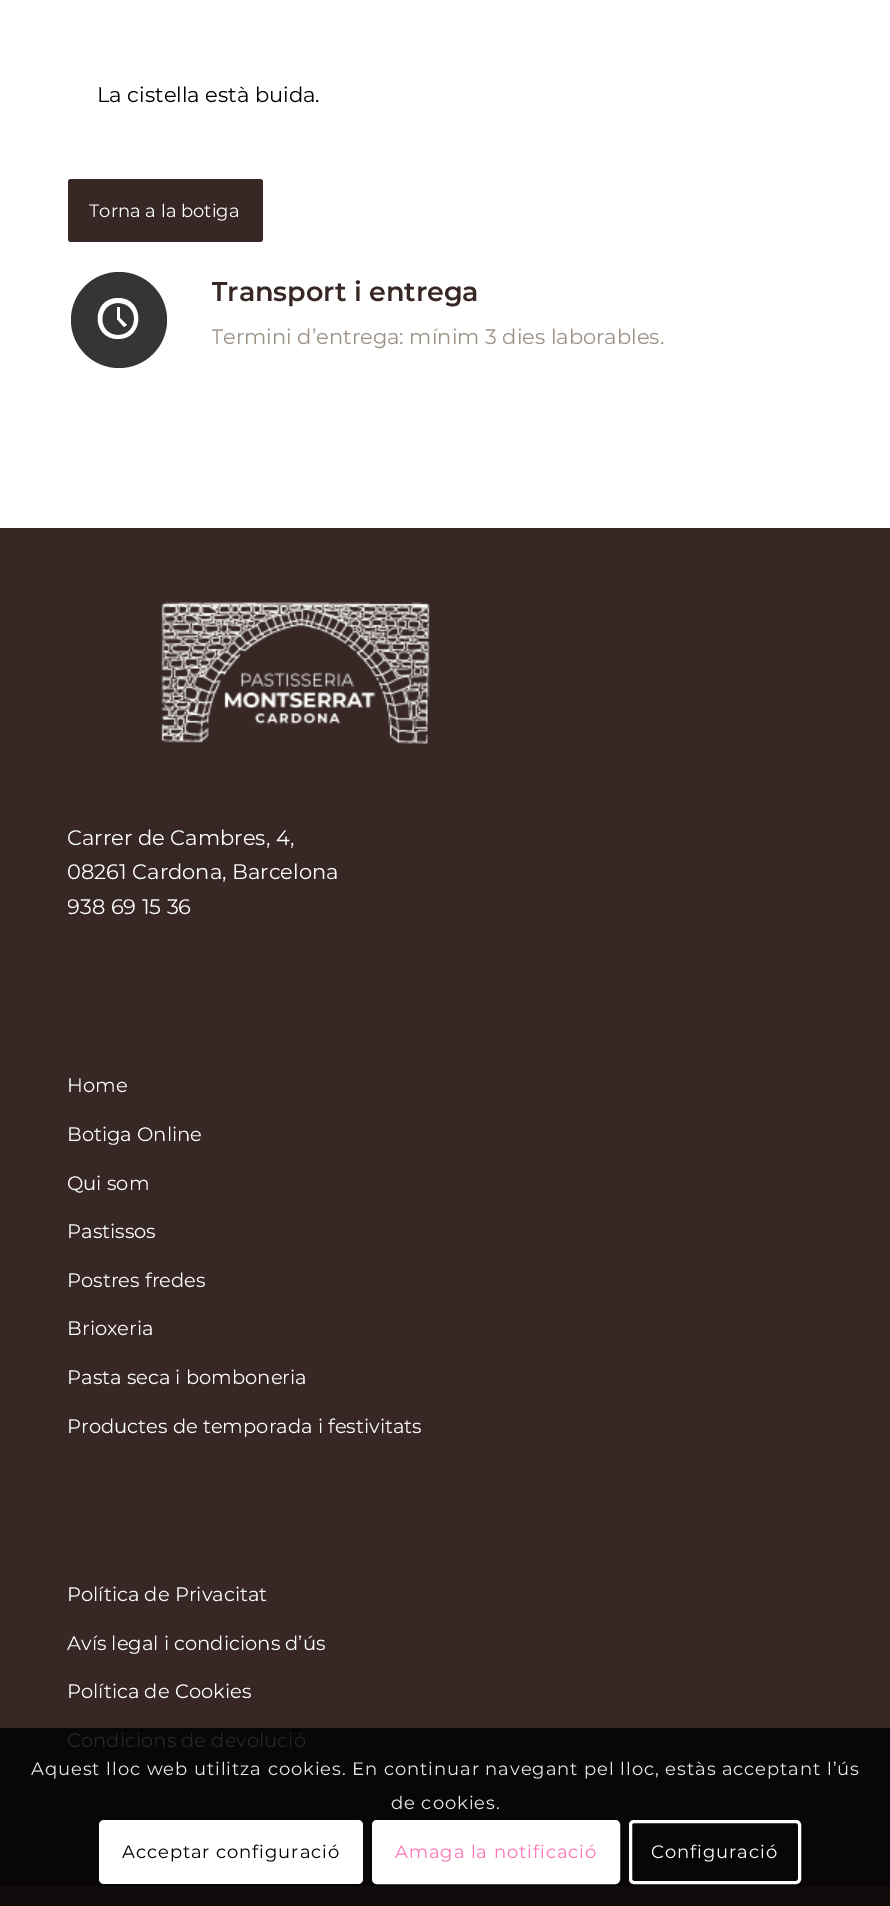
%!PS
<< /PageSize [890 1906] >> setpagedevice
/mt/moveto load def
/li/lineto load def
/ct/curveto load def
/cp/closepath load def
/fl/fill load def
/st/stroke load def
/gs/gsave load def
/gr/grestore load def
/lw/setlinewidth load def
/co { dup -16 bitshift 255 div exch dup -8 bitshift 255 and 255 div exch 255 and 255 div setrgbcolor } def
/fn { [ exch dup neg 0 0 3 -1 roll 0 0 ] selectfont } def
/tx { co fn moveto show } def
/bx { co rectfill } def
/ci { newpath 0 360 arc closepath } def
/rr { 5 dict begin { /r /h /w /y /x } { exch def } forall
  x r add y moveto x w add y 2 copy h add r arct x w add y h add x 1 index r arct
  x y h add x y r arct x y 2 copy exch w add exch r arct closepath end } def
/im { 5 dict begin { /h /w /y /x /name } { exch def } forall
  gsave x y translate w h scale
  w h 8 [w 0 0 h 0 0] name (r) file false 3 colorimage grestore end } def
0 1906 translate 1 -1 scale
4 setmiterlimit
0 0 890 1906 16#372825 bx
0 1728 890 158 16#080606 bx
0 0 890 528 16#FFFFFF bx
16#372825 co
68 179 195 63 3 rr fl
16#353535 co
119 320 48 ci fl
16#FFFFFF co
118 298 mt 145 298 145 339 118 339 ct 91 339 91 298 118 298 ct cp 118 335 mt 139 335 140 303 118 303 ct 97 303 97 335 118 335 ct cp 120 307 mt 120 318 li 127 325 li 124 327 li 117 319 li 117 307 li cp fl
(media/1.raw) 161 602 269 142 im
0 1886 890 20 16#100A0A bx
16#FFFFFF co
99 1820 264 64 5 rr fl
373.5 1821.5 245 61 3.5 rr gs fl gr
3 lw
st
630.5 1821.5 169 61 3.5 rr st
(La cistella està buida.) 97 102 /Montserrat-Regular 21 16#000000 tx
(Torna a la botiga) 89 217 /Montserrat-Regular 18 16#FFFFFF tx
gs
212 272 612 106 rectclip
(Transport i entrega) 211 301 /Montserrat-SemiBold 27 16#372825 tx
(Termini d’entrega: mínim 3 dies laborables.) 211 344 /Montserrat-Regular 21 16#9C9288 tx
gr
(Carrer de Cambres, 4,) 67 845 /Montserrat-Regular 21 16#FFFFFF tx
(08261 Cardona, Barcelona) 67 879 /Montserrat-Regular 21 16#FFFFFF tx
gs
68 803 756 139 rectclip
(938 69 15 36) 67 914 /Montserrat-Regular 21 16#FFFFFF tx
gr
(Home) 67 1092 /Montserrat-Regular 19.5 16#FFFFFF tx
(Botiga Online) 67 1141 /Montserrat-Regular 19.5 16#FFFFFF tx
(Qui som) 67 1190 /Montserrat-Regular 19.5 16#FFFFFF tx
(Pastissos) 67 1238 /Montserrat-Regular 19.5 16#FFFFFF tx
(Postres fredes) 67 1287 /Montserrat-Regular 19.5 16#FFFFFF tx
(Brioxeria) 67 1335 /Montserrat-Regular 19.5 16#FFFFFF tx
(Pasta seca i bomboneria) 67 1384 /Montserrat-Regular 19.5 16#FFFFFF tx
(Productes de temporada i festivitats) 67 1433 /Montserrat-Regular 19.5 16#FFFFFF tx
(Política de Privacitat) 67 1601 /Montserrat-Regular 19.5 16#FFFFFF tx
(Avís legal i condicions d’ús) 67 1650 /Montserrat-Regular 19.5 16#FFFFFF tx
(Política de Cookies) 67 1698 /Montserrat-Regular 19.5 16#FFFFFF tx
(Condicions de devolució) 67 1747 /Montserrat-Regular 19.5 16#262626 tx
/Montserrat-Regular 18 fn
16#E6E6E6 co
31 1775 mt .9 0 (Aquest lloc web utilitza cookies. En continuar navegant pel lloc, estàs acceptant l’ús) ashow
391 1809 mt .9 0 (de cookies.) ashow
16#000000 co
122 1858 mt .9 0 (Acceptar configuració) ashow
16#FF75B5 co
395 1858 mt .9 0 (Amaga la notificació) ashow
16#FFFFFF co
651 1858 mt .9 0 (Configuració) ashow
showpage
